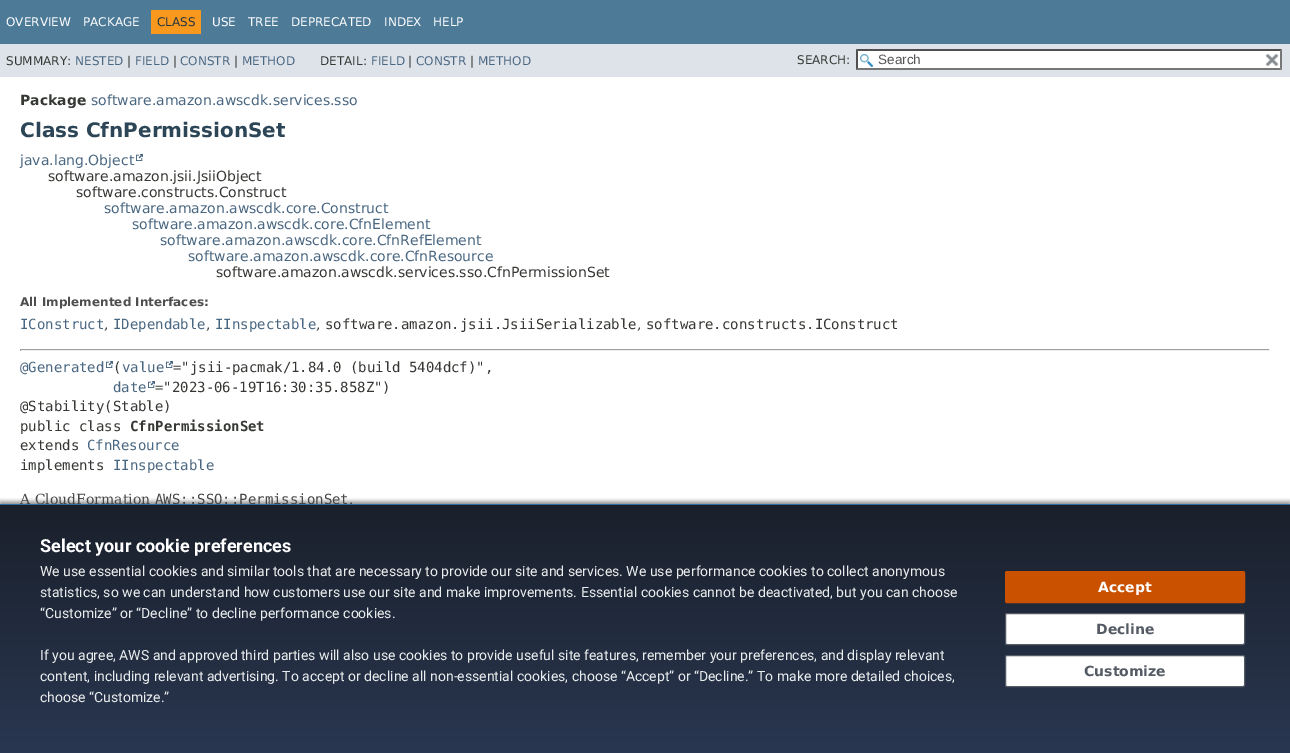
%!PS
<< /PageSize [1290 753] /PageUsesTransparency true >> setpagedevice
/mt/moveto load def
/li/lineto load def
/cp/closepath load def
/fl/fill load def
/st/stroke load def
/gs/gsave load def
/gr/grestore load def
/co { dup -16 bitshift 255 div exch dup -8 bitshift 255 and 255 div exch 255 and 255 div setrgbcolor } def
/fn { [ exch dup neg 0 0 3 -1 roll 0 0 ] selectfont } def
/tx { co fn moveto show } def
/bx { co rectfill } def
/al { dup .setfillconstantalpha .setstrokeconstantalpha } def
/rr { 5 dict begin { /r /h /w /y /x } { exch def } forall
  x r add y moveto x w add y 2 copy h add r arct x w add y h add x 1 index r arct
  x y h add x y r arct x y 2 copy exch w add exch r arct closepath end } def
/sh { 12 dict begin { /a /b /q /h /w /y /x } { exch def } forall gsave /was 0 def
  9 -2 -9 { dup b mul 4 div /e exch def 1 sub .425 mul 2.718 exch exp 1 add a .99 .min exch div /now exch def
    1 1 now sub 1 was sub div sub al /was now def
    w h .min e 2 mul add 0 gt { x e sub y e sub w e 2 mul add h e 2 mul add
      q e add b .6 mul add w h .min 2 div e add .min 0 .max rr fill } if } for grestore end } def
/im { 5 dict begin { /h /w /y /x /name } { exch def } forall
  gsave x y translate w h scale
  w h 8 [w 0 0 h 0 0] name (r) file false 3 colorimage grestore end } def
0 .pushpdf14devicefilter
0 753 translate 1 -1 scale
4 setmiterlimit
0 0 1290 753 16#FFFFFF bx
0 0 1290 44 16#4D7A97 bx
151 10 50 24 16#F8981D bx
0 44 1290 33 16#DEE3E9 bx
856 49 426 21 16#FFFFFF bx
(media/1.raw) 860 54 13 13 im
16#4F4F4F co
856 49 mt 1282 49 li 1280 51 li 858 51 li cp fl
16#767676 co
1282 49 mt 1282 70 li 1280 68 li 1280 51 li cp fl
1282 70 mt 856 70 li 858 68 li 1280 68 li cp fl
16#4F4F4F co
856 70 mt 856 49 li 858 51 li 858 68 li cp fl
(media/2.raw) 1265 54 14 12 im
(media/3.raw) 136 154 7 7 im
20 349 1250 1 16#9F9F9F bx
1269 349 1 2 16#EEEEEE bx
20 350 1250 1 16#EEEEEE bx
20 349 1 2 16#9F9F9F bx
(media/3.raw) 106 361 7 7 im
(media/3.raw) 166 361 7 7 im
(media/3.raw) 148 381 7 7 im
gs
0 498 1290 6 rectclip
16#000000 co
0 502 1290 249 0 2.5 .5 sh
gr
0.98 al
gs 0 505 mt 1290 505 li 1290 753 li 0 753 li cp clip newpath
<< /ShadingType 2 /ColorSpace /DeviceRGB /Coords [645 505 645 753] /Extend [true true] /Function << /FunctionType 2 /Domain [0 1] /C0 [.082 .11 .153] /C1 [.149 .2 .302] /N 1 >> >> shfill gr
1 al
16#C95100 co
1005.5 571.5 239 31 1.5 rr gs fl gr
st
16#FFFFFF co
1005.5 613.5 239 31 1.5 rr gs fl gr
16#545B64 co
st
16#FFFFFF co
1005.5 655.5 239 31 1.5 rr gs fl gr
16#545B64 co
st
(OVERVIEW) 6 26 /DejaVuSans-Regular 12 16#FFFFFF tx
(PACKAGE) 83 26 /DejaVuSans-Regular 12 16#FFFFFF tx
(CLASS) 157 26 /DejaVuSans-Regular 12 16#253441 tx
(USE) 212 26 /DejaVuSans-Regular 12 16#FFFFFF tx
(TREE) 248 26 /DejaVuSans-Regular 12 16#FFFFFF tx
(DEPRECATED) 291 26 /DejaVuSans-Regular 12 16#FFFFFF tx
(INDEX) 384 26 /DejaVuSans-Regular 12 16#FFFFFF tx
(HELP) 433 26 /DejaVuSans-Regular 12 16#FFFFFF tx
(SUMMARY:) 6 65 /DejaVuSans-Regular 12 16#353833 tx
(NESTED) 75 65 /DejaVuSans-Regular 12 16#4A6782 tx
(|) 127 65 /DejaVuSans-Regular 12 16#353833 tx
(FIELD) 135 65 /DejaVuSans-Regular 12 16#4A6782 tx
(|) 173 65 /DejaVuSans-Regular 12 16#353833 tx
(CONSTR) 180 65 /DejaVuSans-Regular 12 16#4A6782 tx
(|) 234 65 /DejaVuSans-Regular 12 16#353833 tx
(METHOD) 242 65 /DejaVuSans-Regular 12 16#4A6782 tx
(DETAIL:) 320 65 /DejaVuSans-Regular 12 16#353833 tx
(FIELD) 371 65 /DejaVuSans-Regular 12 16#4A6782 tx
(|) 408 65 /DejaVuSans-Regular 12 16#353833 tx
(CONSTR) 416 65 /DejaVuSans-Regular 12 16#4A6782 tx
(|) 470 65 /DejaVuSans-Regular 12 16#353833 tx
(METHOD) 478 65 /DejaVuSans-Regular 12 16#4A6782 tx
(SEARCH:) 797 64 /DejaVuSans-Regular 12 16#353833 tx
(Search) 878 64 /LiberationSans-Regular 13.5 16#545454 tx
(Package) 20 105 /DejaVuSans-Bold 14 16#353833 tx
(software.amazon.awscdk.services.sso) 91 105 /DejaVuSans-Regular 14 16#4A6782 tx
(Class CfnPermissionSet) 20 137 /DejaVuSans-Bold 20 16#2C4557 tx
(java.lang.Object) 20 165 /DejaVuSans-Regular 14 16#4A6782 tx
(software.amazon.jsii.JsiiObject) 48 181 /DejaVuSans-Regular 14 16#353833 tx
(software.constructs.Construct) 76 197 /DejaVuSans-Regular 14 16#353833 tx
(software.amazon.awscdk.core.Construct) 104 213 /DejaVuSans-Regular 14 16#4A6782 tx
(software.amazon.awscdk.core.CfnElement) 132 229 /DejaVuSans-Regular 14 16#4A6782 tx
(software.amazon.awscdk.core.CfnRefElement) 160 245 /DejaVuSans-Regular 14 16#4A6782 tx
(software.amazon.awscdk.core.CfnResource) 188 261 /DejaVuSans-Regular 14 16#4A6782 tx
(software.amazon.awscdk.services.sso.CfnPermissionSet) 216 277 /DejaVuSans-Regular 14 16#353833 tx
(All Implemented Interfaces:) 20 306 /DejaVuSans-Bold 12 16#4E4E4E tx
(IConstruct) 20 329 /DejaVuSansMono-Regular 14 16#4A6782 tx
(,) 104 329 /DejaVuSerif-Regular 14 16#353833 tx
(IDependable) 113 329 /DejaVuSansMono-Regular 14 16#4A6782 tx
(,) 206 329 /DejaVuSerif-Regular 14 16#353833 tx
(IInspectable) 215 329 /DejaVuSansMono-Regular 14 16#4A6782 tx
(,) 316 329 /DejaVuSerif-Regular 14 16#353833 tx
(software.amazon.jsii.JsiiSerializable) 325 329 /DejaVuSansMono-Regular 14 16#353833 tx
(,) 637 329 /DejaVuSerif-Regular 14 16#353833 tx
(software.constructs.IConstruct) 646 329 /DejaVuSansMono-Regular 14 16#353833 tx
(@Generated) 20 372 /DejaVuSansMono-Regular 14 16#4A6782 tx
(\() 113 372 /DejaVuSansMono-Regular 14 16#353833 tx
(value) 122 372 /DejaVuSansMono-Regular 14 16#4A6782 tx
(="jsii-pacmak/1.84.0 \(build 5404dcf\)",) 173 372 /DejaVuSansMono-Regular 14 16#353833 tx
(date) 113 392 /DejaVuSansMono-Regular 14 16#4A6782 tx
(="2023-06-19T16:30:35.858Z"\)) 155 392 /DejaVuSansMono-Regular 14 16#353833 tx
(@Stability\(Stable\)) 20 411 /DejaVuSansMono-Regular 14 16#353833 tx
(public class) 20 431 /DejaVuSansMono-Regular 14 16#353833 tx
(CfnPermissionSet) 130 431 /DejaVuSansMono-Bold 14 16#353833 tx
(extends) 20 450 /DejaVuSansMono-Regular 14 16#353833 tx
(CfnResource) 87 450 /DejaVuSansMono-Regular 14 16#4A6782 tx
(implements) 20 470 /DejaVuSansMono-Regular 14 16#353833 tx
(IInspectable) 113 470 /DejaVuSansMono-Regular 14 16#4A6782 tx
(A CloudFormation) 20 504 /DejaVuSerif-Regular 14 16#474747 tx
(AWS::SSO::PermissionSet) 155 504 /DejaVuSansMono-Regular 14 16#474747 tx
(.) 349 504 /DejaVuSerif-Regular 14 16#474747 tx
0 504 1290 1 16#306DA3 bx
(Select your cookie preferences) 40 552 /Roboto-Bold 18 16#FFFFFF tx
(We use essential cookies and similar tools that are necessary to provide our site and services. We use performance cookies to collect anonymous) 40 576 /Roboto-Regular 14 16#EAEDED tx
(statistics, so we can understand how customers use our site and make improvements. Essential cookies cannot be deactivated, but you can choose) 40 597 /Roboto-Regular 14 16#EAEDED tx
(“Customize” or “Decline” to decline performance cookies.) 40 618 /Roboto-Regular 14 16#EAEDED tx
(If you agree, AWS and approved third parties will also use cookies to provide useful site features, remember your preferences, and display relevant) 40 660 /Roboto-Regular 14 16#EAEDED tx
(content, including relevant advertising. To accept or decline all non-essential cookies, choose “Accept” or “Decline.” To make more detailed choices,) 40 681 /Roboto-Regular 14 16#EAEDED tx
(choose “Customize.”) 40 702 /Roboto-Regular 14 16#EAEDED tx
(Accept) 1098 592 /DejaVuSans-Bold 14 16#FFFFFF tx
(Decline) 1096 634 /DejaVuSans-Bold 14 16#545B64 tx
(Customize) 1084 676 /DejaVuSans-Bold 14 16#545B64 tx
.poppdf14devicefilter showpage
